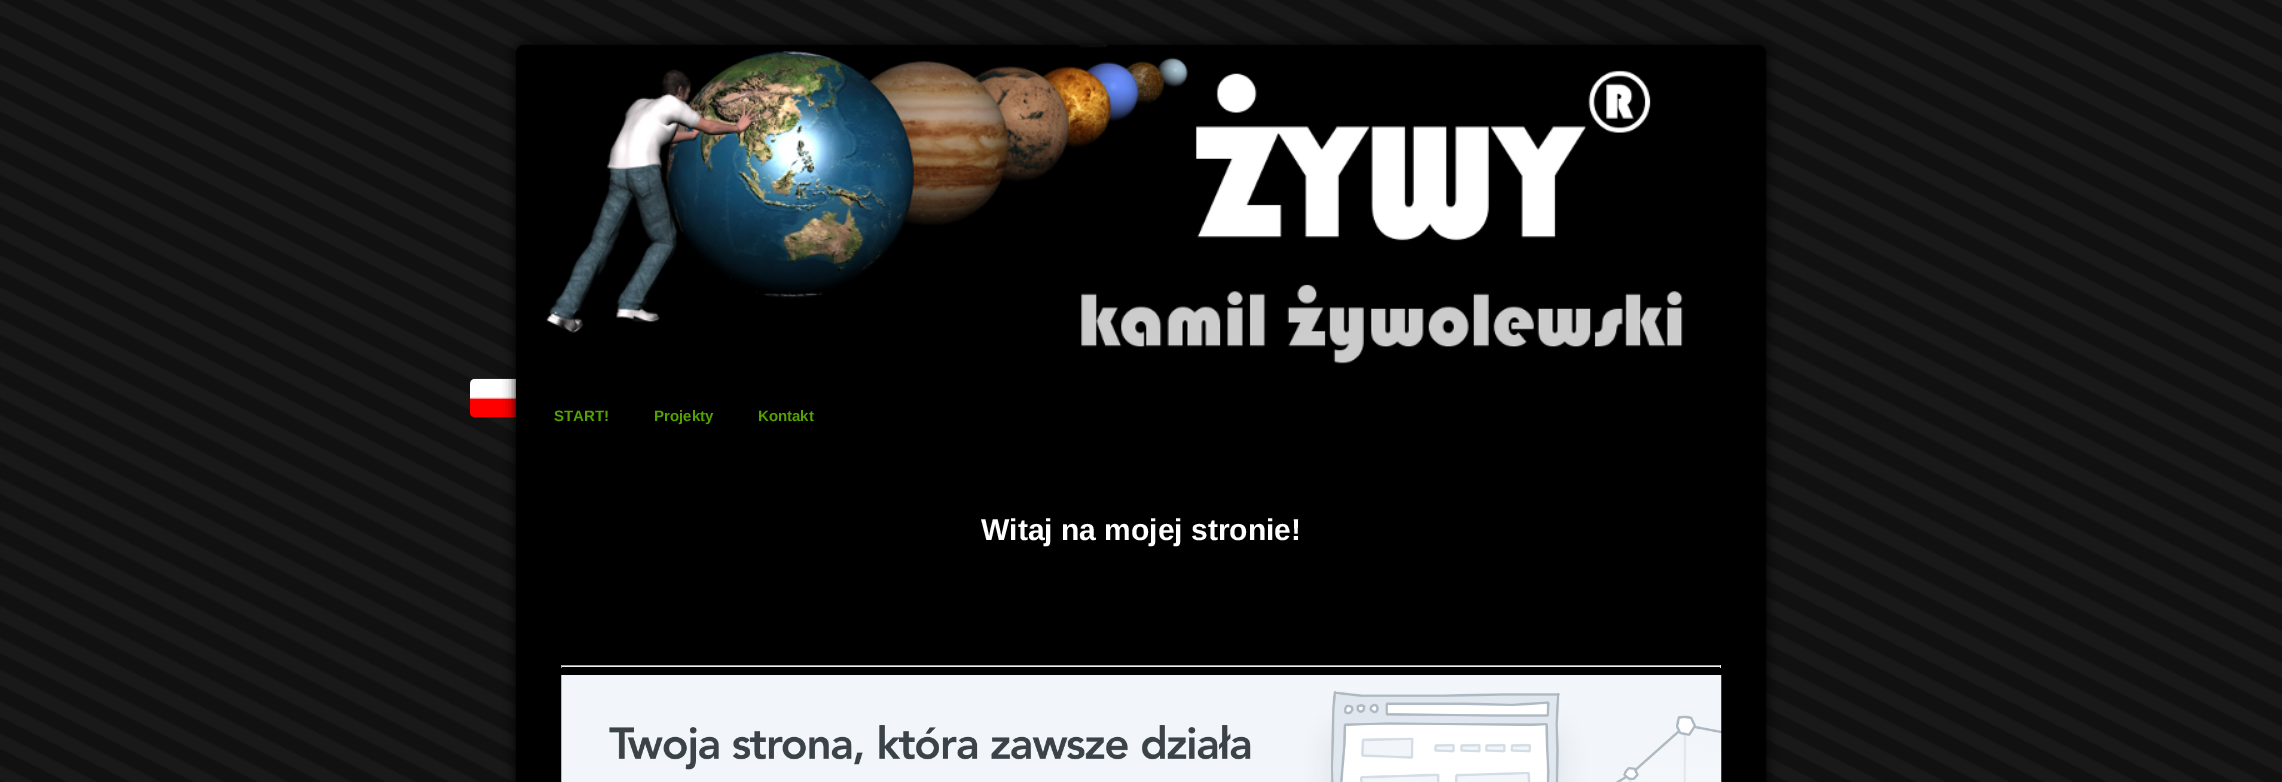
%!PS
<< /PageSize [2282 782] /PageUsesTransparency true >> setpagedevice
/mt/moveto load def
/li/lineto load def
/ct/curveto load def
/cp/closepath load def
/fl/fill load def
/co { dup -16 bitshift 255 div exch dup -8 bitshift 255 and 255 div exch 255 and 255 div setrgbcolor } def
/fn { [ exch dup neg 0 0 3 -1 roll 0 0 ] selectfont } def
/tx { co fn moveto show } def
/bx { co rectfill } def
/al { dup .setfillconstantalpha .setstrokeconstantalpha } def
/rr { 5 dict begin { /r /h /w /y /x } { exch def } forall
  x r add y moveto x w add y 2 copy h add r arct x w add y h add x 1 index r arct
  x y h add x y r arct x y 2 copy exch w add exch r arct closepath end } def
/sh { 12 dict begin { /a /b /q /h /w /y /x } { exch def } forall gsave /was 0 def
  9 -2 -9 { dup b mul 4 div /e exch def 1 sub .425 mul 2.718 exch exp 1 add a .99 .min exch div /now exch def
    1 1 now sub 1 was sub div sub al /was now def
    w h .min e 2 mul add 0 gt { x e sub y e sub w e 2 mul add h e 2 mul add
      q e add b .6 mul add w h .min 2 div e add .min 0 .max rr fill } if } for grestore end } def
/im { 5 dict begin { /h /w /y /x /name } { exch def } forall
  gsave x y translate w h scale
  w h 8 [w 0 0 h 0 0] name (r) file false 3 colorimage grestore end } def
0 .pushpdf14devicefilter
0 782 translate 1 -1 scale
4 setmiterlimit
0 0 2282 782 16#FFFFFF bx
(media/1.raw) 0 0 2282 782 im
(media/2.raw) 470 378 46 40 im
16#000000 co
516 45 1250 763 8 6 1 sh
524 45 mt 1758 45 li 1762.5 45 1766 48.5 1766 53 ct 1766 385 li 516 385 li 516 53 li 516 48.5 519.5 45 524 45 ct cp fl
(media/3.raw) 521 45 1246 340 im
516 385 1250 397 16#000000 bx
561 665 1160 1 16#9F9F9F bx
1720 665 1 3 16#EEEEEE bx
561 666 1160 1 16#EEEEEE bx
561 665 1 3 16#9F9F9F bx
(media/4.raw) 561 675 1161 107 im
(START!) 554 421 /LiberationSans-Bold 15 16#54A100 tx
(Projekty) 654 421 /LiberationSans-Bold 15 16#54A100 tx
(Kontakt) 758 421 /LiberationSans-Bold 15 16#54A100 tx
(Witaj na mojej stronie!) 981 540 /LiberationSans-Bold 30 16#FFFFFF tx
.poppdf14devicefilter showpage
